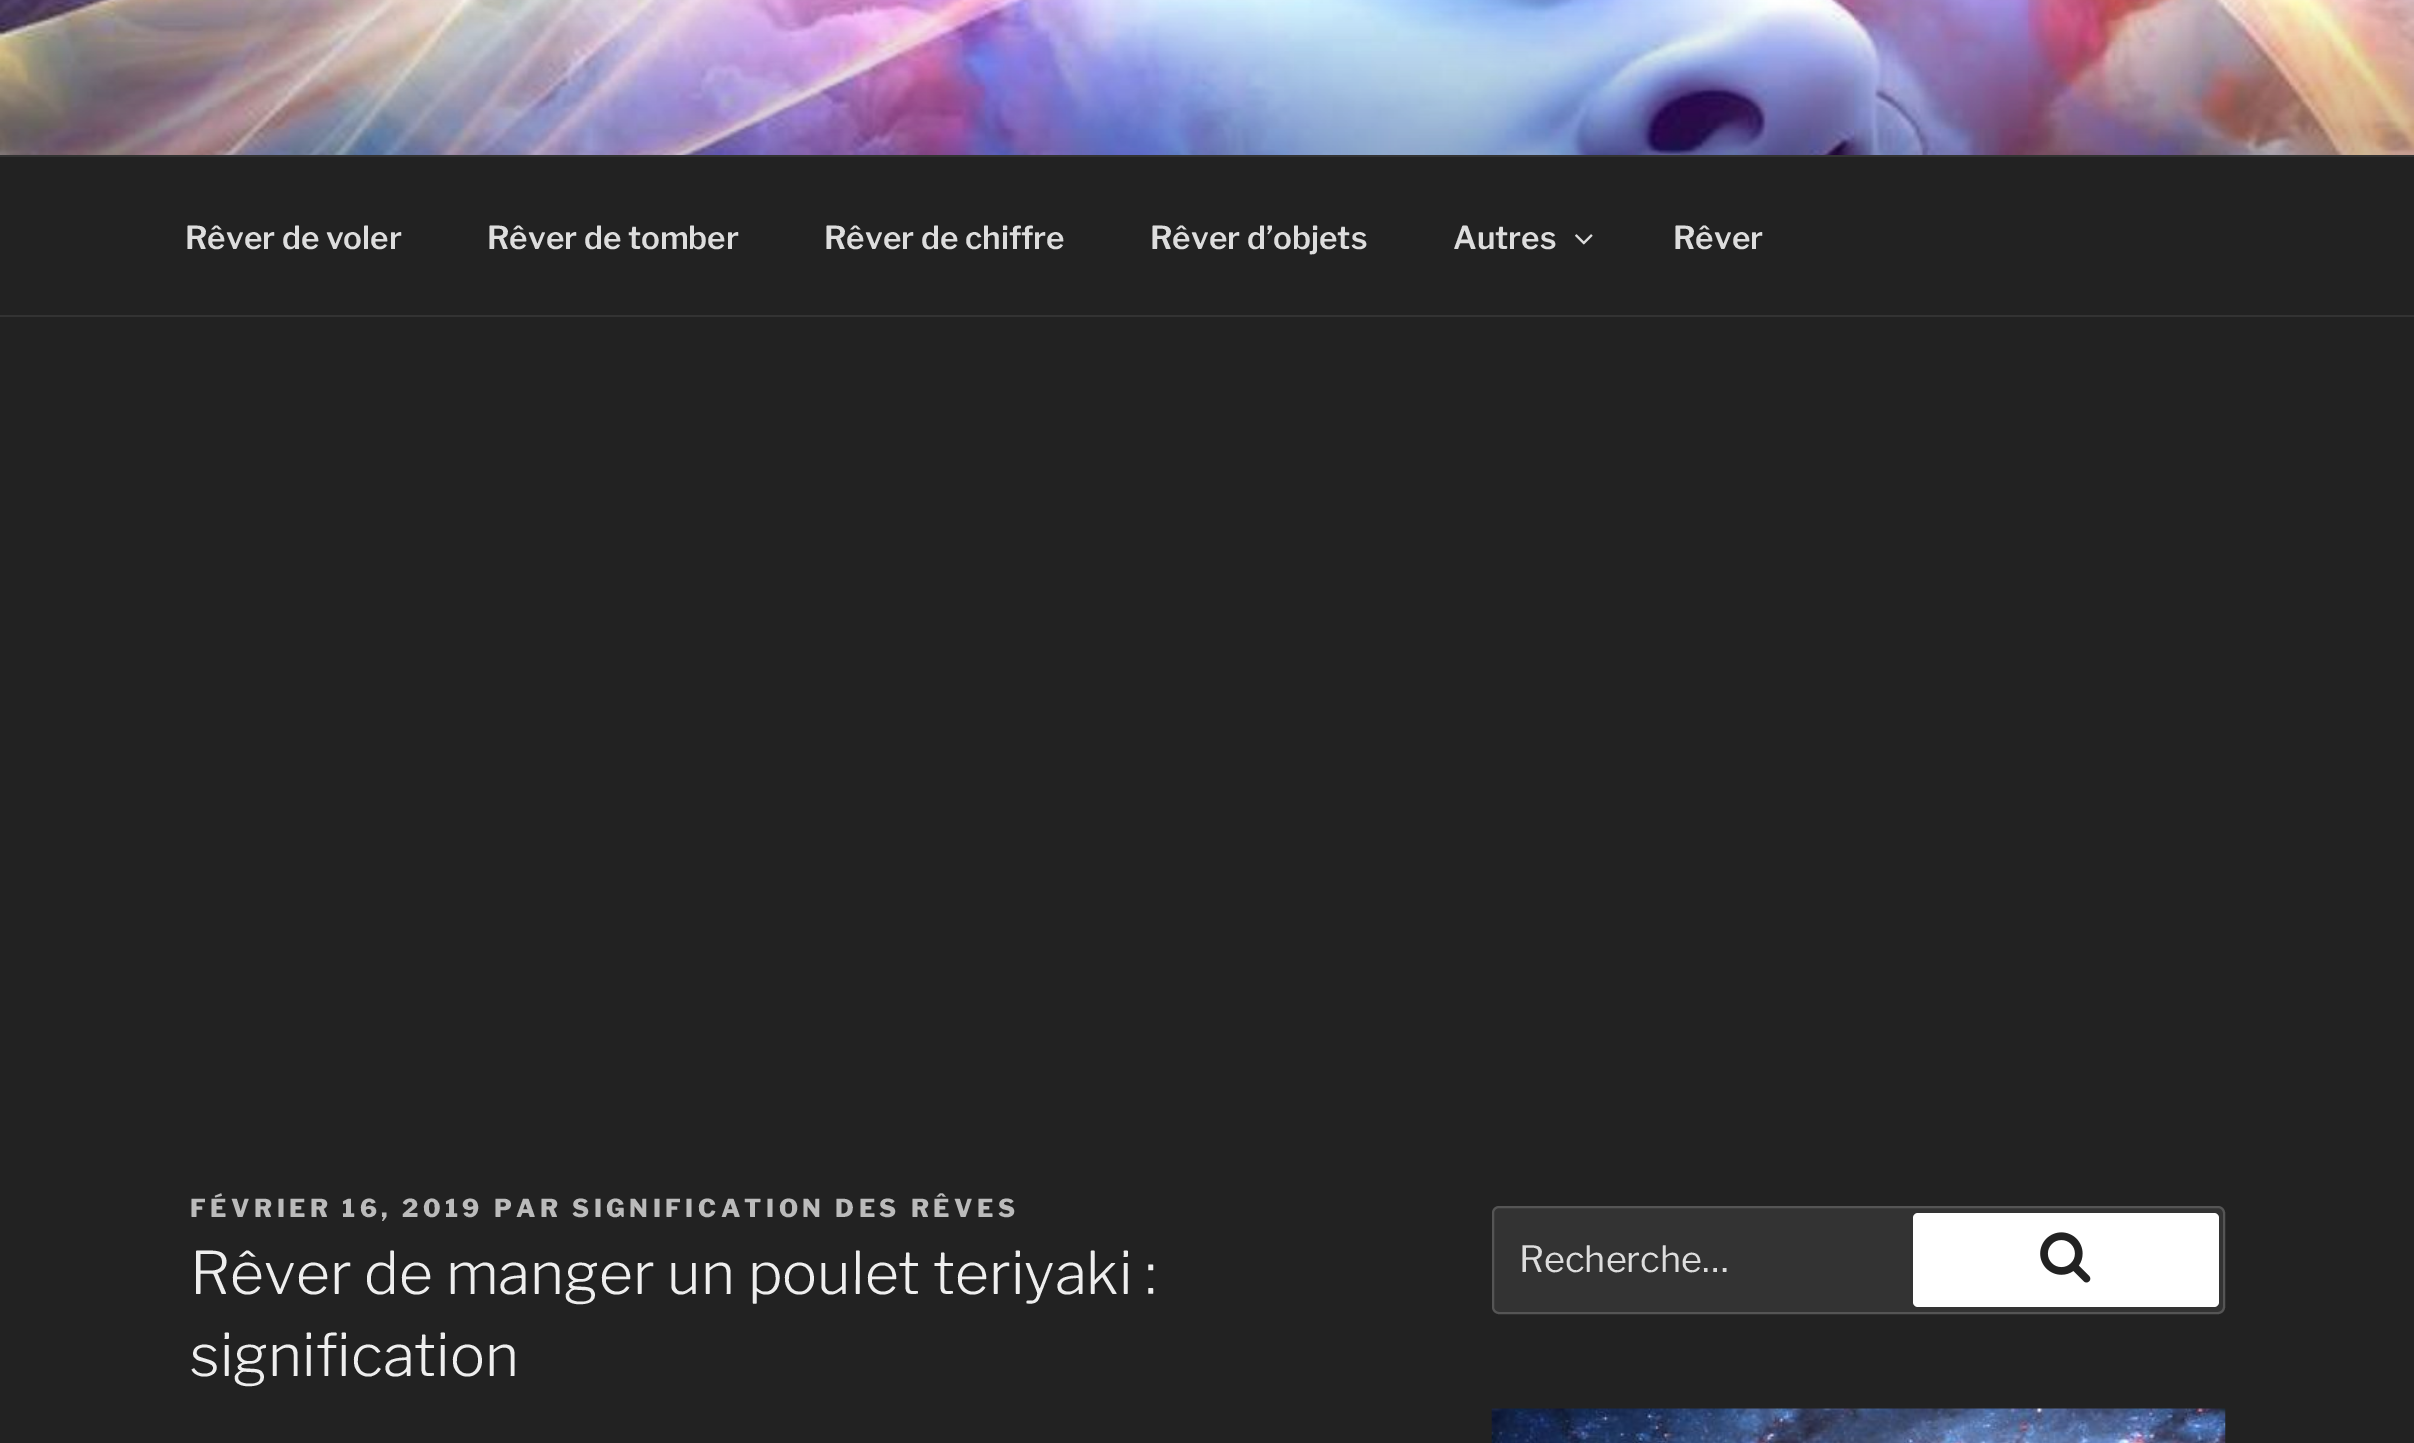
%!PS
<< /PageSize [2414 1443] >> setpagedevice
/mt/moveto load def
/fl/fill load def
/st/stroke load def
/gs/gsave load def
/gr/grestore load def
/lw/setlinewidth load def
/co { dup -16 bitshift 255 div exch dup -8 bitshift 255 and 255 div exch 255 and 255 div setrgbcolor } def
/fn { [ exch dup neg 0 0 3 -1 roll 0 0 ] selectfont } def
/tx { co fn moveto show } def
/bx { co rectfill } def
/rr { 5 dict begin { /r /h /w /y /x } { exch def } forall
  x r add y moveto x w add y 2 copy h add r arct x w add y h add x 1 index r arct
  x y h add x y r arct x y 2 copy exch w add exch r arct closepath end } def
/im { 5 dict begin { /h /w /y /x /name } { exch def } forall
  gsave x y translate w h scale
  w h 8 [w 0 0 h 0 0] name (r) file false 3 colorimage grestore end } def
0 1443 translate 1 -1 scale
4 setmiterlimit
0 0 2414 1443 16#222222 bx
(media/1.raw) 0 0 2414 155 im
0 155 2414 2 16#333333 bx
0 315 2414 2 16#333333 bx
(media/2.raw) 1575 234 18 11 im
1493 1207 731 106 6 rr gs fl gr
16#555555 co
2 lw
st
16#FFFFFF co
1913 1213 306 94 5 rr fl
(media/3.raw) 2040 1232 51 51 im
(media/4.raw) 1491 1408 735 35 im
(Rêver de voler) 185 249 /LibreFranklin-SemiBold 31.5 16#DDDDDD tx
(Rêver de tomber) 487 249 /LibreFranklin-SemiBold 31.5 16#DDDDDD tx
(Rêver de chiffre) 824 249 /LibreFranklin-SemiBold 31.5 16#DDDDDD tx
(Rêver d’objets) 1150 249 /LibreFranklin-SemiBold 31.5 16#DDDDDD tx
(Autres) 1453 249 /LibreFranklin-SemiBold 31.5 16#DDDDDD tx
(Rêver) 1673 249 /LibreFranklin-SemiBold 31.5 16#DDDDDD tx
/LibreFranklin-ExtraBold 24.75 fn
16#BBBBBB co
190 1217 mt 4.5 0 (FÉVRIER 16, 2019 PAR SIGNIFICATION DES RÊVES) ashow
(Rêver de manger un poulet teriyaki :) 190 1294 /LibreFranklin-Light 58.5 16#EEEEEE tx
(signification) 190 1376 /LibreFranklin-Light 58.5 16#EEEEEE tx
(Recherche…) 1519 1272 /LibreFranklin-Regular 36 16#DDDDDD tx
showpage
